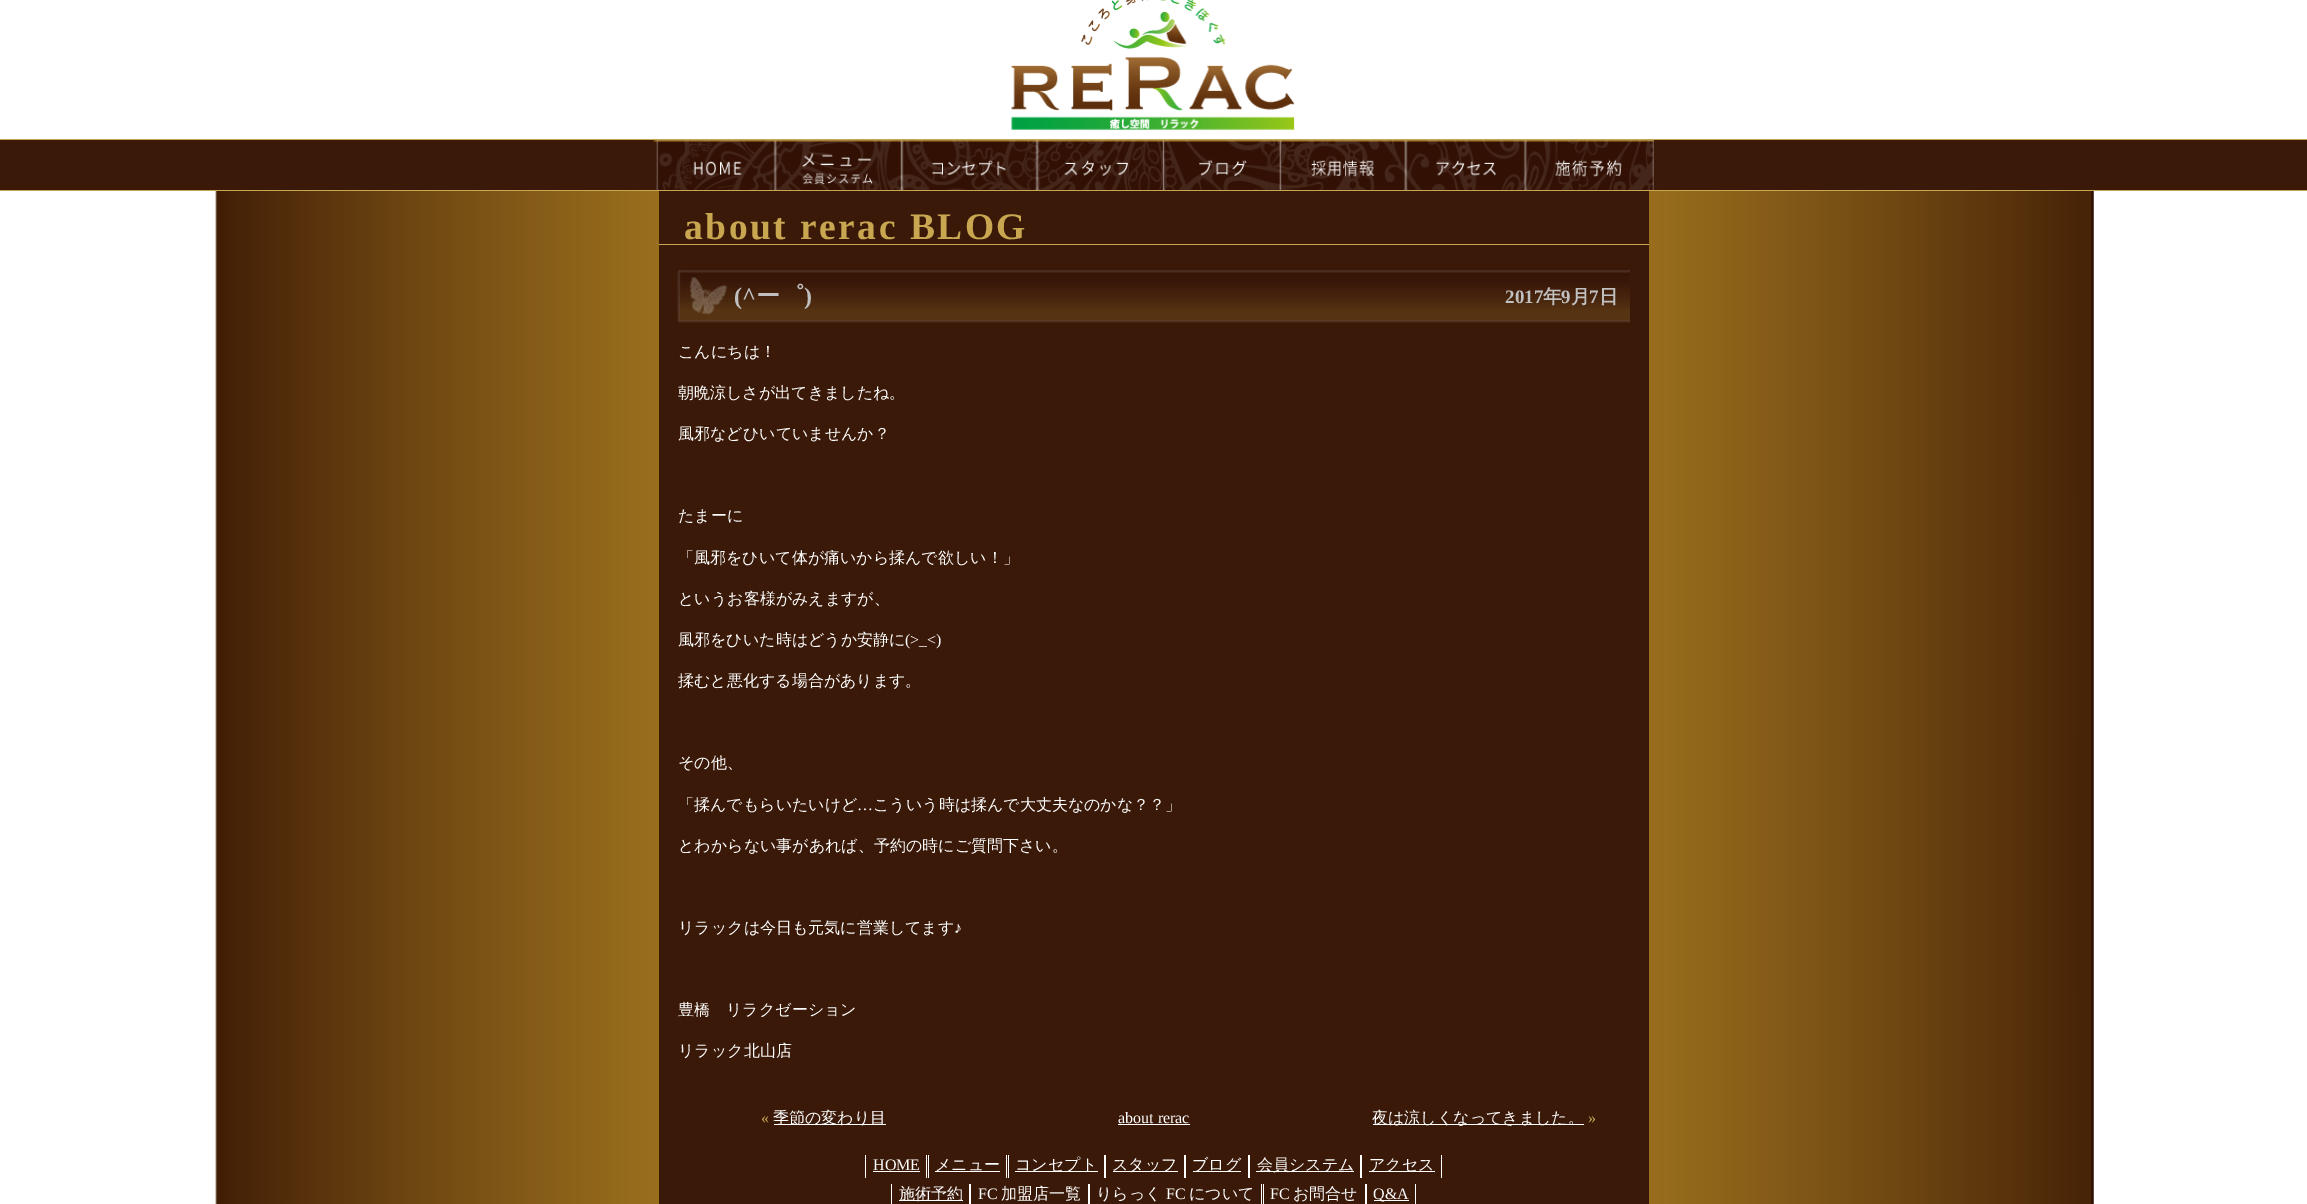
%!PS
<< /PageSize [2307 1204] >> setpagedevice
/mt/moveto load def
/co { dup -16 bitshift 255 div exch dup -8 bitshift 255 and 255 div exch 255 and 255 div setrgbcolor } def
/fn { [ exch dup neg 0 0 3 -1 roll 0 0 ] selectfont } def
/tx { co fn moveto show } def
/bx { co rectfill } def
/im { 5 dict begin { /h /w /y /x /name } { exch def } forall
  gsave x y translate w h scale
  w h 8 [w 0 0 h 0 0] name (r) file false 3 colorimage grestore end } def
0 1204 translate 1 -1 scale
4 setmiterlimit
0 0 2307 1204 16#FFFFFF bx
(media/1.raw) 215 191 1879 1013 im
(media/2.raw) 1011 0 284 130 im
0 140 2307 50 16#3B1909 bx
0 139 2307 1 16#C8A750 bx
0 190 2307 1 16#C8A750 bx
(media/3.raw) 653 140 1001 50 im
659 191 990 1013 16#3B1909 bx
659 244 990 1 16#C8A750 bx
(media/4.raw) 677 270 953 53 im
774 1124 112 1 16#FFFFFF bx
1118 1124 72 1 16#FFFFFF bx
1373 1124 211 1 16#FFFFFF bx
926 1155 1 23 16#FFFFFF bx
865 1155 1 23 16#FFFFFF bx
873 1171 47 1 16#FFFFFF bx
1006 1155 1 23 16#FFFFFF bx
928 1155 1 23 16#FFFFFF bx
935 1171 65 1 16#FFFFFF bx
1104 1155 2 23 16#FFFFFF bx
1008 1155 1 23 16#FFFFFF bx
1015 1171 83 1 16#FFFFFF bx
1184 1155 2 23 16#FFFFFF bx
1113 1171 65 1 16#FFFFFF bx
1248 1155 2 23 16#FFFFFF bx
1193 1171 48 1 16#FFFFFF bx
1360 1155 2 23 16#FFFFFF bx
1256 1171 98 1 16#FFFFFF bx
1441 1155 1 23 16#FFFFFF bx
1369 1171 66 1 16#FFFFFF bx
969 1184 2 20 16#FFFFFF bx
891 1184 1 20 16#FFFFFF bx
899 1200 64 1 16#FFFFFF bx
1088 1184 2 20 16#FFFFFF bx
1261 1184 1 20 16#FFFFFF bx
1365 1184 2 20 16#FFFFFF bx
1263 1184 1 20 16#FFFFFF bx
1415 1184 1 20 16#FFFFFF bx
1374 1200 35 1 16#FFFFFF bx
/LiberationSerif-Bold 37.5 fn
16#C8A750 co
684 239 mt 2.5 0 (about rerac BLOG) ashow
(\(^) 734 304 /LiberationSerif-Bold 24 16#C0C0C0 tx
(ー゜) 756 304 /WenQuanYiZenHei-Bold 24 16#C0C0C0 tx
(\)) 804 304 /LiberationSerif-Bold 24 16#C0C0C0 tx
(2017) 1505 303 /LiberationSerif-Bold 19 16#C0C0C0 tx
(年) 1543 303 /WenQuanYiZenHei-Bold 19 16#C0C0C0 tx
(9) 1561 303 /LiberationSerif-Bold 19 16#C0C0C0 tx
(月) 1571 303 /WenQuanYiZenHei-Bold 19 16#C0C0C0 tx
(7) 1589 303 /LiberationSerif-Bold 19 16#C0C0C0 tx
(日) 1599 303 /WenQuanYiZenHei-Bold 19 16#C0C0C0 tx
(こんにちは！) 678 357 /WenQuanYiZenHei-Medium 16 16#FFFFFF tx
(朝晩涼しさが出てきましたね。) 678 398 /WenQuanYiZenHei-Medium 16 16#FFFFFF tx
(風邪などひいていませんか？) 678 439 /WenQuanYiZenHei-Medium 16 16#FFFFFF tx
(たまーに) 678 521 /WenQuanYiZenHei-Medium 16 16#FFFFFF tx
(「風邪をひいて体が痛いから揉んで欲しい！」) 678 563 /WenQuanYiZenHei-Medium 16 16#FFFFFF tx
(というお客様がみえますが、) 678 604 /WenQuanYiZenHei-Medium 16 16#FFFFFF tx
(風邪をひいた時はどうか安静に) 678 645 /WenQuanYiZenHei-Medium 16 16#FFFFFF tx
(\(>_<\)) 905 645 /LiberationSerif-Regular 16 16#FFFFFF tx
(揉むと悪化する場合があります。) 678 686 /WenQuanYiZenHei-Medium 16 16#FFFFFF tx
(その他、) 678 768 /WenQuanYiZenHei-Medium 16 16#FFFFFF tx
(「揉んでもらいたいけど) 678 810 /WenQuanYiZenHei-Medium 16 16#FFFFFF tx
(…) 857 810 /LiberationSerif-Regular 16 16#FFFFFF tx
(こういう時は揉んで大丈夫なのかな？？」) 873 810 /WenQuanYiZenHei-Medium 16 16#FFFFFF tx
(とわからない事があれば、予約の時にご質問下さい。) 678 851 /WenQuanYiZenHei-Medium 16 16#FFFFFF tx
(リラックは今日も元気に営業してます) 678 933 /WenQuanYiZenHei-Medium 16 16#FFFFFF tx
(♪) 954 933 /LiberationSerif-Regular 16 16#FFFFFF tx
(豊橋　リラクゼーション) 678 1015 /WenQuanYiZenHei-Medium 16 16#FFFFFF tx
(リラック北山店) 678 1056 /WenQuanYiZenHei-Medium 16 16#FFFFFF tx
(«) 761 1123 /LiberationSerif-Regular 16 16#C8A750 tx
(季節の変わり目) 773 1123 /WenQuanYiZenHei-Medium 16 16#FFFFFF tx
(about rerac) 1118 1123 /LiberationSerif-Regular 16 16#FFFFFF tx
(夜は涼しくなってきました。) 1372 1123 /WenQuanYiZenHei-Medium 16 16#FFFFFF tx
(») 1588 1123 /LiberationSerif-Regular 16 16#C8A750 tx
(HOME) 873 1170 /LiberationSerif-Regular 16 16#FFFFFF tx
(メニュー) 935 1170 /WenQuanYiZenHei-Medium 16 16#FFFFFF tx
(コンセプト) 1015 1170 /WenQuanYiZenHei-Medium 16 16#FFFFFF tx
(スタッフ) 1112 1170 /WenQuanYiZenHei-Medium 16 16#FFFFFF tx
(ブログ) 1192 1170 /WenQuanYiZenHei-Medium 16 16#FFFFFF tx
(会員システム) 1257 1170 /WenQuanYiZenHei-Medium 16 16#FFFFFF tx
(アクセス) 1369 1170 /WenQuanYiZenHei-Medium 16 16#FFFFFF tx
(施術予約) 899 1199 /WenQuanYiZenHei-Medium 16 16#FFFFFF tx
(FC) 978 1199 /LiberationSerif-Regular 16 16#FFFFFF tx
(加盟店一覧) 1001 1199 /WenQuanYiZenHei-Medium 16 16#FFFFFF tx
(りらっく) 1096 1199 /WenQuanYiZenHei-Medium 16 16#FFFFFF tx
(FC) 1166 1199 /LiberationSerif-Regular 16 16#FFFFFF tx
(について) 1189 1199 /WenQuanYiZenHei-Medium 16 16#FFFFFF tx
(FC) 1270 1199 /LiberationSerif-Regular 16 16#FFFFFF tx
(お問合せ) 1293 1199 /WenQuanYiZenHei-Medium 16 16#FFFFFF tx
(Q&A) 1373 1199 /LiberationSerif-Regular 16 16#FFFFFF tx
showpage
